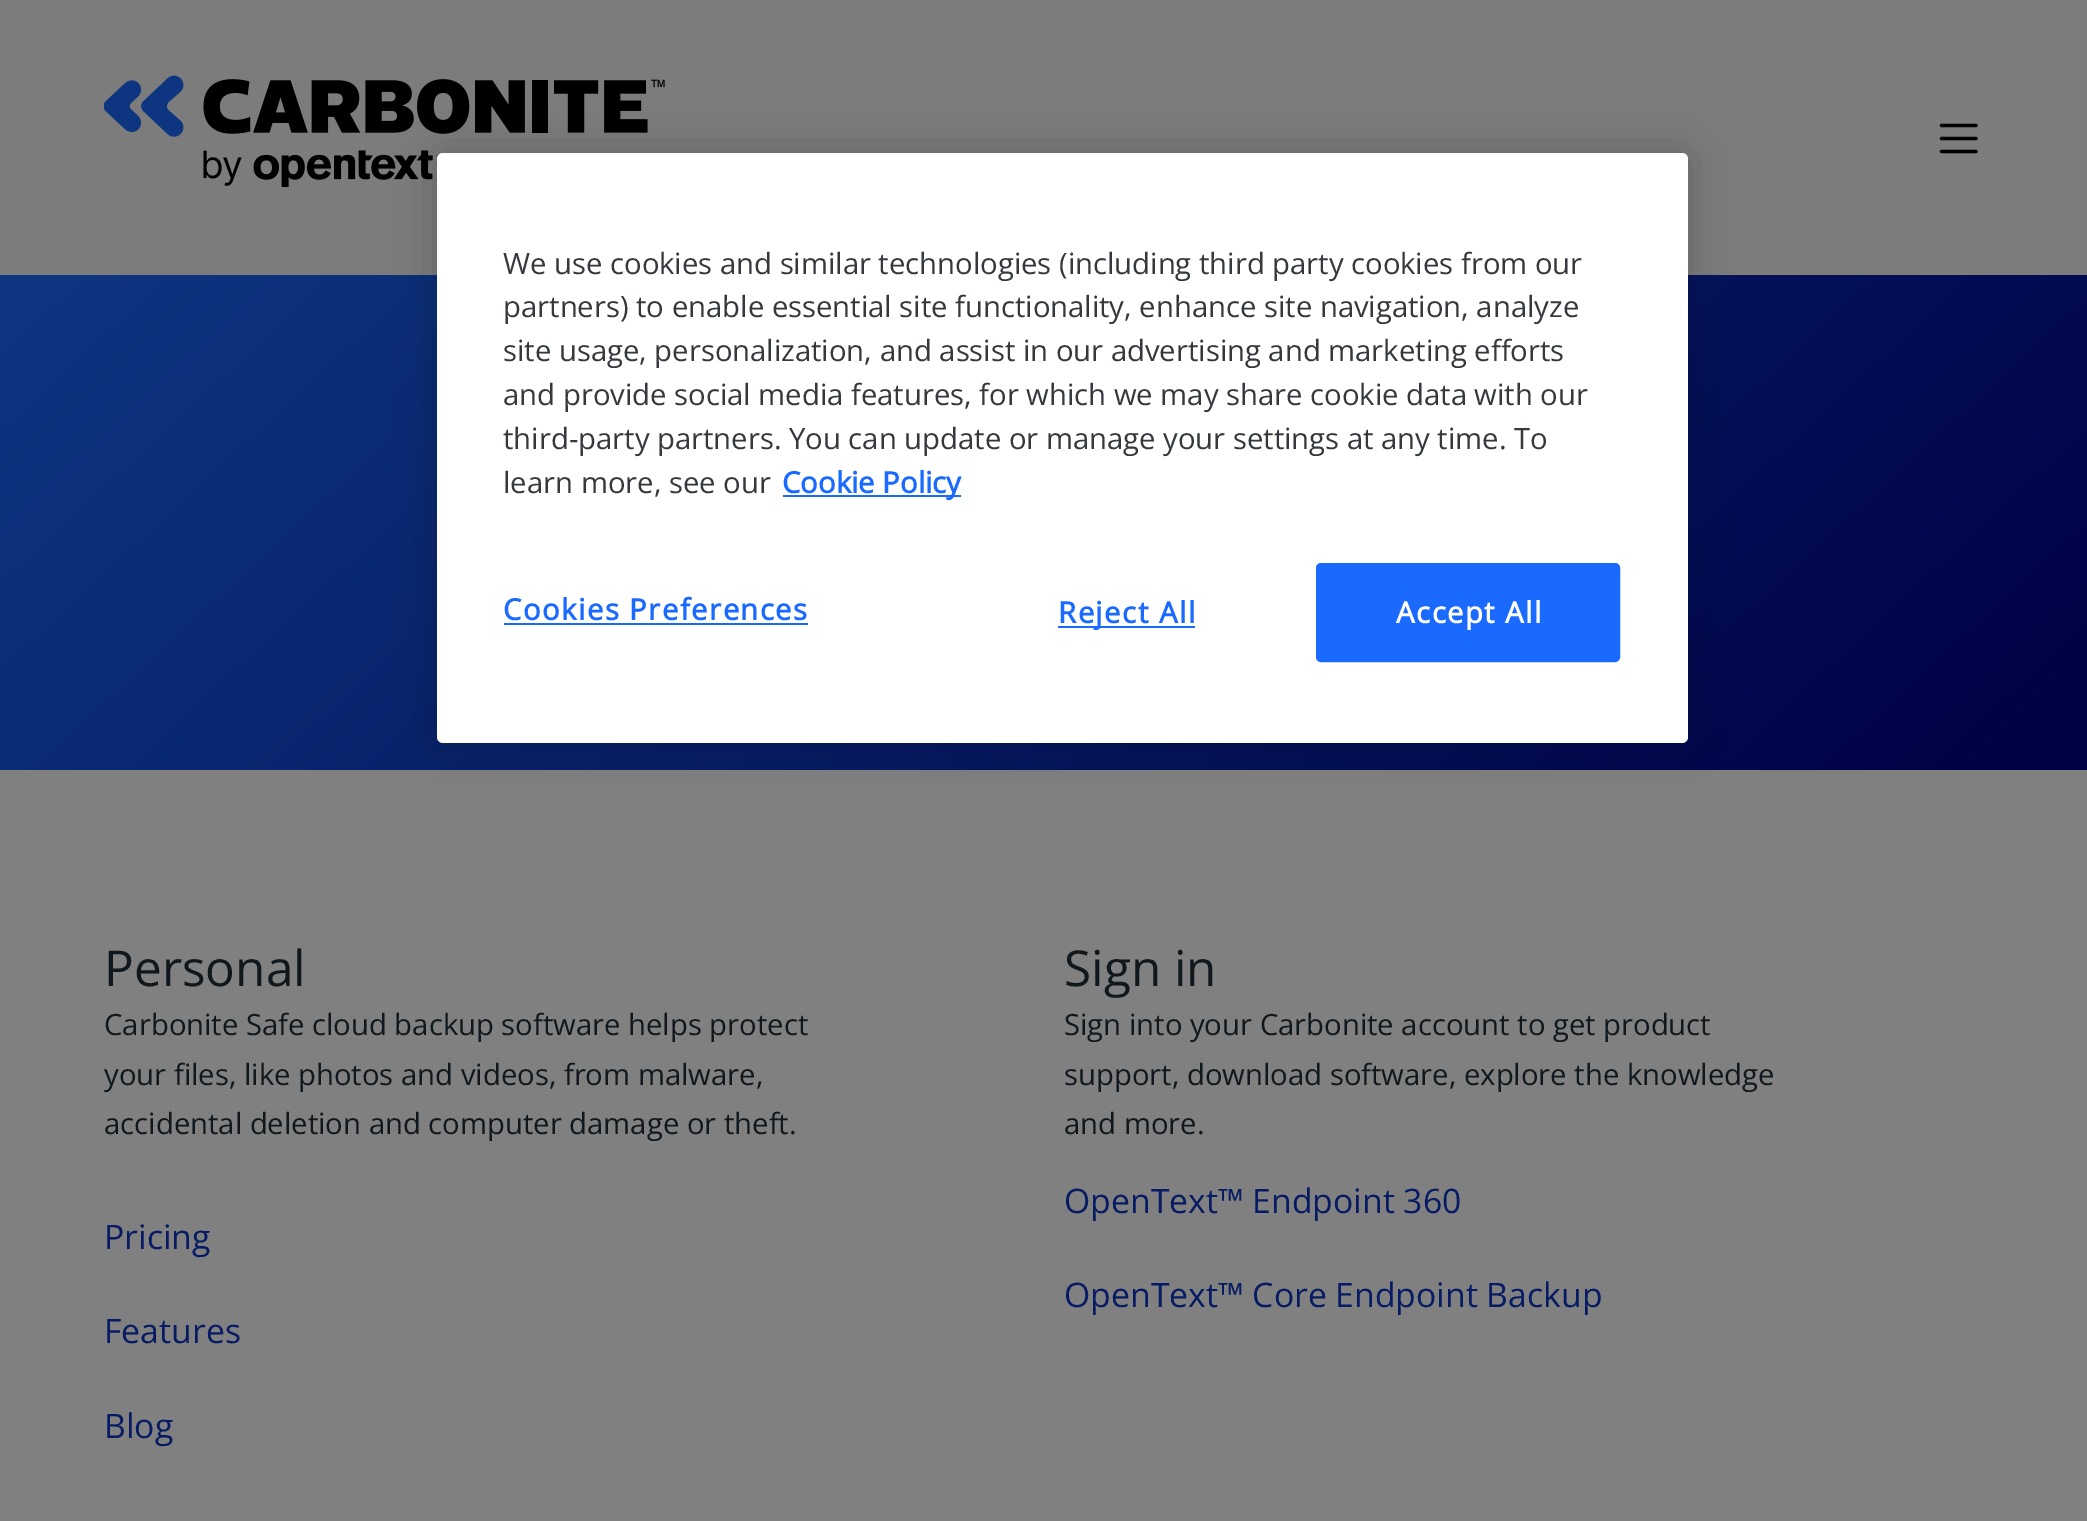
%!PS
<< /PageSize [2087 1521] /PageUsesTransparency true >> setpagedevice
/mt/moveto load def
/li/lineto load def
/cp/closepath load def
/fl/fill load def
/st/stroke load def
/gs/gsave load def
/gr/grestore load def
/lw/setlinewidth load def
/co { dup -16 bitshift 255 div exch dup -8 bitshift 255 and 255 div exch 255 and 255 div setrgbcolor } def
/fn { [ exch dup neg 0 0 3 -1 roll 0 0 ] selectfont } def
/tx { co fn moveto show } def
/bx { co rectfill } def
/al { dup .setfillconstantalpha .setstrokeconstantalpha } def
/rr { 5 dict begin { /r /h /w /y /x } { exch def } forall
  x r add y moveto x w add y 2 copy h add r arct x w add y h add x 1 index r arct
  x y h add x y r arct x y 2 copy exch w add exch r arct closepath end } def
/sh { 12 dict begin { /a /b /q /h /w /y /x } { exch def } forall gsave /was 0 def
  9 -2 -9 { dup b mul 4 div /e exch def 1 sub .425 mul 2.718 exch exp 1 add a .99 .min exch div /now exch def
    1 1 now sub 1 was sub div sub al /was now def
    w h .min e 2 mul add 0 gt { x e sub y e sub w e 2 mul add h e 2 mul add
      q e add b .6 mul add w h .min 2 div e add .min 0 .max rr fill } if } for grestore end } def
/im { 5 dict begin { /h /w /y /x /name } { exch def } forall
  gsave x y translate w h scale
  w h 8 [w 0 0 h 0 0] name (r) file false 3 colorimage grestore end } def
0 .pushpdf14devicefilter
0 1521 translate 1 -1 scale
4 setmiterlimit
0 0 2087 1521 16#808080 bx
0 0 2087 275 16#7C7C7C bx
(media/1.raw) 104 75 561 112 im
gs 0 275 mt 2087 275 li 2087 770 li 0 770 li cp clip newpath
<< /ShadingType 2 /ColorSpace /DeviceRGB /Coords [439 -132 1649 1176] /Extend [true true] /Function << /FunctionType 3 /Domain [0 1] /Functions [<< /FunctionType 2 /Domain [0 1] /C0 [.051 .208 .502] /C1 [.051 .208 .502] /N 1 >> << /FunctionType 2 /Domain [0 1] /C0 [.051 .208 .502] /C1 [0 0 .275] /N 1 >> << /FunctionType 2 /Domain [0 1] /C0 [0 0 .275] /C1 [0 0 .275] /N 1 >>] /Bounds [.03 .99] /Encode [0 1 0 1 0 1] >> >> shfill gr
16#000000 co
437 153 1251 590 6 20 .2 sh
16#FFFFFF co
437 153 1251 590 6 rr fl
783 495 178 2 16#1A6AFF bx
504 623 304 2 16#1A6AFF bx
1058 626 137 2 16#1A6AFF bx
1317 564 302 97 4 rr gs fl gr
2 lw
st
16#000000 co
3.2 lw
1 setlinecap
1 setlinejoin
1941.5 125.5 mt 1976 125.5 li 1941.5 138.5 mt 1976 138.5 li 1941.5 151.5 mt 1976 151.5 li st
(We use cookies and similar technologies \(including third party cookies from our) 503 274 /OpenSans-Regular 29.25 16#35393D tx
(partners\) to enable essential site functionality, enhance site navigation, analyze) 503 317 /OpenSans-Regular 29.25 16#35393D tx
(site usage, personalization, and assist in our advertising and marketing efforts) 503 361 /OpenSans-Regular 29.25 16#35393D tx
(and provide social media features, for which we may share cookie data with our) 503 405 /OpenSans-Regular 29.25 16#35393D tx
(third-party partners. You can update or manage your settings at any time. To) 503 449 /OpenSans-Regular 29.25 16#35393D tx
(learn more, see our) 503 493 /OpenSans-Regular 29.25 16#35393D tx
(Cookie Policy) 782 493 /OpenSans-Bold 29.25 16#1A6AFF tx
503 620 mt 1.5 0 (Cookies Preferences) ashow
1058 623 mt 1.5 0 (Reject All) ashow
16#FFFFFF co
1396 623 mt 1.5 0 (Accept All) ashow
(Personal) 104 986 /OpenSans-Regular 49.5 16#11181D tx
(Carbonite Safe cloud backup software helps protect) 104 1035 /OpenSans-Regular 29.25 16#11181D tx
(your files, like photos and videos, from malware,) 104 1085 /OpenSans-Regular 29.25 16#11181D tx
(accidental deletion and computer damage or theft.) 104 1134 /OpenSans-Regular 29.25 16#11181D tx
(Pricing) 104 1249 /OpenSans-Regular 33.75 16#071B64 tx
(Features) 104 1343 /OpenSans-Regular 33.75 16#071B64 tx
(Blog) 104 1438 /OpenSans-Regular 33.75 16#071B64 tx
(Sign in) 1064 986 /OpenSans-Regular 49.5 16#11181D tx
(Sign into your Carbonite account to get product) 1064 1035 /OpenSans-Regular 29.25 16#11181D tx
(support, download software, explore the knowledge) 1064 1085 /OpenSans-Regular 29.25 16#11181D tx
(and more.) 1064 1134 /OpenSans-Regular 29.25 16#11181D tx
(OpenText™ Endpoint 360) 1064 1213 /OpenSans-Regular 33.75 16#071B64 tx
(OpenText™ Core Endpoint Backup) 1064 1307 /OpenSans-Regular 33.75 16#071B64 tx
.poppdf14devicefilter showpage
